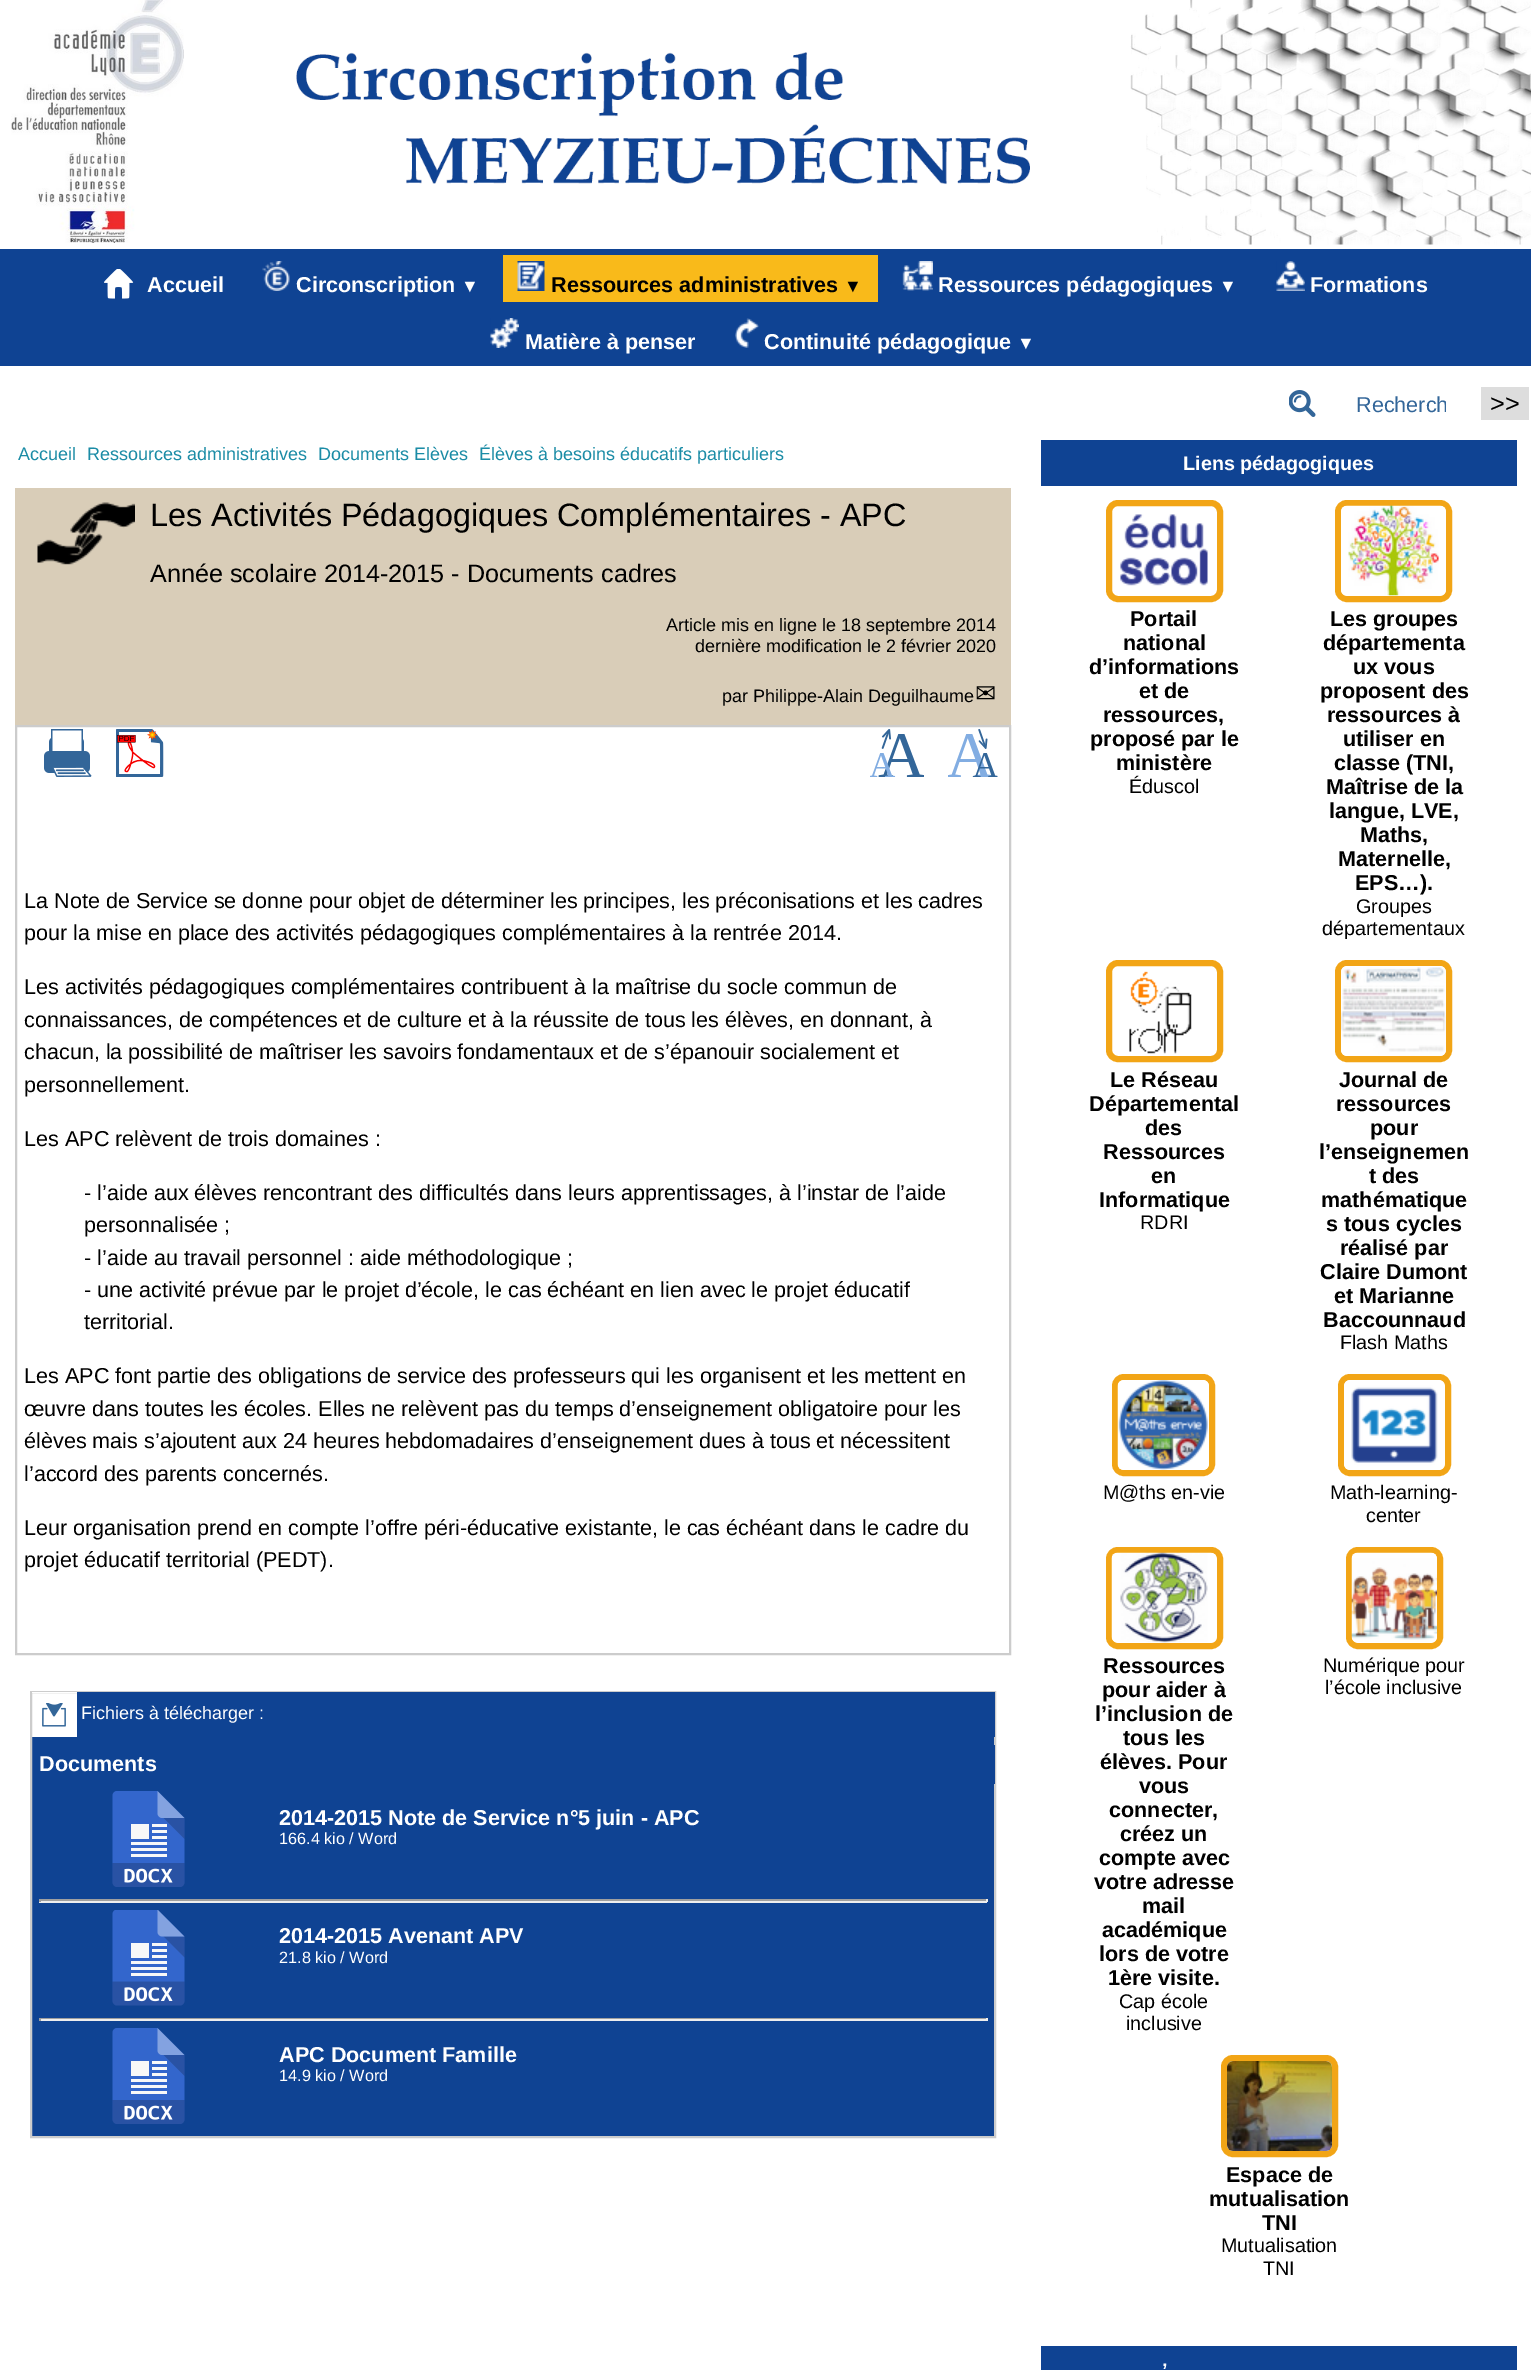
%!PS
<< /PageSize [1531 2370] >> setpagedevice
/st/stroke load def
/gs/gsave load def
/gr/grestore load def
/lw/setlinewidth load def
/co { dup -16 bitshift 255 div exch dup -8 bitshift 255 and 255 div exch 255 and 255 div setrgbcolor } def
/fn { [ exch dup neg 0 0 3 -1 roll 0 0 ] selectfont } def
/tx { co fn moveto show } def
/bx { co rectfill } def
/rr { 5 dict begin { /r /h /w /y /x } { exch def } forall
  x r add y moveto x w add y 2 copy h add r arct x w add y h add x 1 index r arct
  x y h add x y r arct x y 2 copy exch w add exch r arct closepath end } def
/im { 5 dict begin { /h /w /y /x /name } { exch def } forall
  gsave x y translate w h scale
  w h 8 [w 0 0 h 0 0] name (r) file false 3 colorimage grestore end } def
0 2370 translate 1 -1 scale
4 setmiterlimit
0 0 1531 2370 16#FFFFFF bx
(media/1.raw) 11 0 1520 245 im
0 249 1531 117 16#0F4393 bx
(media/2.raw) 104 269 30 30 im
(media/3.raw) 262 261 28 30 im
503 255 375 47 16#F9BA1A bx
(media/4.raw) 517 261 28 30 im
(media/5.raw) 902 261 31 30 im
(media/6.raw) 1276 261 29 30 im
(media/7.raw) 490 318 29 30 im
(media/8.raw) 735 318 24 30 im
15 488 996 237 16#D9CDB8 bx
(media/9.raw) 37 502 98 63 im
16#CCCCCC co
2 lw
16 726 994 928 rectstroke
(media/10.raw) 44 729 48 48 im
(media/11.raw) 116 729 48 48 im
(media/12.raw) 870 729 54 48 im
(media/13.raw) 948 729 50 48 im
32 1737 962 399 16#0F4393 bx
16#CCCCCC co
31 1692 964 445 rectstroke
77 1692 918 45 16#0F4393 bx
32 1692 45 1 16#FFFFFF bx
(media/14.raw) 42 1703 24 24 im
994 1745 1 39 16#0F4393 bx
(media/15.raw) 112 1791 73 96 im
39 1899 948 2 16#9F9F9F bx
986 1899 2 3 16#EEEEEE bx
39 1901 948 2 16#EEEEEE bx
39 1899 2 3 16#9F9F9F bx
(media/16.raw) 112 1910 73 96 im
39 2018 948 1 16#9F9F9F bx
986 2018 2 3 16#EEEEEE bx
39 2019 948 2 16#EEEEEE bx
39 2018 2 3 16#9F9F9F bx
(media/15.raw) 112 2028 73 96 im
(media/17.raw) 1289 390 27 27 im
1481 387 48 33 16#DDDDDD bx
1041 440 476 46 16#0F4393 bx
16#F2A516 co
6 lw
1109 503 111 96 9 rr st
(media/18.raw) 1120 514 88 72 im
1338 503 111 96 9 rr st
(media/19.raw) 1341 505 105 91 im
1109 963 111 96 9 rr st
(media/20.raw) 1129 971 63 83 im
1338 963 111 96 9 rr st
(media/21.raw) 1341 966 105 90 im
1115 1377 97 96 9 rr st
(media/22.raw) 1117 1380 92 90 im
1341 1377 107 96 9 rr st
(media/23.raw) 1344 1380 101 90 im
1109 1550 111 96 9 rr st
(media/24.raw) 1111 1552 106 91 im
1349 1550 91 96 9 rr st
(media/25.raw) 1351 1552 86 91 im
1224 2058 111 96 9 rr st
(media/26.raw) 1227 2061 105 90 im
1041 2346 476 24 16#0F4393 bx
(Accueil) 147 292 /LiberationSans-Bold 21.6 16#FFFFFF tx
(Circonscription) 296 292 /LiberationSans-Bold 21.6 16#FFFFFF tx
(▼) 461 292 /LiberationSans-Bold 18 16#FFFFFF tx
(Ressources administratives) 551 292 /LiberationSans-Bold 21.6 16#000000 tx
(▼) 844 292 /LiberationSans-Bold 18 16#000000 tx
(Ressources pédagogiques) 938 292 /LiberationSans-Bold 21.6 16#FFFFFF tx
(▼) 1219 292 /LiberationSans-Bold 18 16#FFFFFF tx
(Formations) 1310 292 /LiberationSans-Bold 21.6 16#FFFFFF tx
(Matière à penser) 525 349 /LiberationSans-Bold 21.6 16#FFFFFF tx
(Continuité pédagogique) 764 349 /LiberationSans-Bold 21.6 16#FFFFFF tx
(▼) 1017 349 /LiberationSans-Bold 18 16#FFFFFF tx
(Accueil) 18 460 /LiberationSans-Regular 18 16#1B8CA6 tx
(Ressources administratives) 87 460 /LiberationSans-Regular 18 16#1B8CA6 tx
(Documents Elèves) 318 460 /LiberationSans-Regular 18 16#1B8CA6 tx
(Élèves à besoins éducatifs particuliers) 479 460 /LiberationSans-Regular 18 16#1B8CA6 tx
(Les Activités Pédagogiques Complémentaires - APC) 150 526 /LiberationSans-Regular 32.4 16#000000 tx
(Année scolaire 2014-2015 - Documents cadres) 150 582 /LiberationSans-Regular 25.2 16#000000 tx
(Article mis en ligne le 18 septembre 2014) 666 631 /LiberationSans-Regular 18 16#000000 tx
(dernière modification le 2 février 2020) 695 652 /LiberationSans-Regular 18 16#000000 tx
(par Philippe-Alain Deguilhaume) 722 702 /LiberationSans-Regular 18 16#000000 tx
(✉) 975 702 /DejaVuSans-Regular 25.2 16#000000 tx
(La Note de Service se donne pour objet de déterminer les principes, les préconisations et les cadres) 24 908 /LiberationSans-Regular 21.6 16#000000 tx
(pour la mise en place des activités pédagogiques complémentaires à la rentrée 2014.) 24 940 /LiberationSans-Regular 21.6 16#000000 tx
(Les activités pédagogiques complémentaires contribuent à la maîtrise du socle commun de) 24 994 /LiberationSans-Regular 21.6 16#000000 tx
(connaissances, de compétences et de culture et à la réussite de tous les élèves, en donnant, à) 24 1027 /LiberationSans-Regular 21.6 16#000000 tx
(chacun, la possibilité de maîtriser les savoirs fondamentaux et de s’épanouir socialement et) 24 1059 /LiberationSans-Regular 21.6 16#000000 tx
(personnellement.) 24 1092 /LiberationSans-Regular 21.6 16#000000 tx
(Les APC relèvent de trois domaines :) 24 1146 /LiberationSans-Regular 21.6 16#000000 tx
(- l’aide aux élèves rencontrant des difficultés dans leurs apprentissages, à l’instar de l’aide) 84 1200 /LiberationSans-Regular 21.6 16#000000 tx
(personnalisée ;) 84 1232 /LiberationSans-Regular 21.6 16#000000 tx
(- l’aide au travail personnel : aide méthodologique ;) 84 1265 /LiberationSans-Regular 21.6 16#000000 tx
(- une activité prévue par le projet d’école, le cas échéant en lien avec le projet éducatif) 84 1297 /LiberationSans-Regular 21.6 16#000000 tx
(territorial.) 84 1329 /LiberationSans-Regular 21.6 16#000000 tx
(Les APC font partie des obligations de service des professeurs qui les organisent et les mettent en) 24 1383 /LiberationSans-Regular 21.6 16#000000 tx
(œuvre dans toutes les écoles. Elles ne relèvent pas du temps d’enseignement obligatoire pour les) 24 1416 /LiberationSans-Regular 21.6 16#000000 tx
(élèves mais s’ajoutent aux 24 heures hebdomadaires d’enseignement dues à tous et nécessitent) 24 1448 /LiberationSans-Regular 21.6 16#000000 tx
(l’accord des parents concernés.) 24 1481 /LiberationSans-Regular 21.6 16#000000 tx
(Leur organisation prend en compte l’offre péri-éducative existante, le cas échéant dans le cadre du) 24 1535 /LiberationSans-Regular 21.6 16#000000 tx
(projet éducatif territorial \(PEDT\).) 24 1567 /LiberationSans-Regular 21.6 16#000000 tx
(Fichiers à télécharger :) 81 1719 /LiberationSans-Regular 18 16#FFFFFF tx
(Documents) 39 1771 /LiberationSans-Bold 21.6 16#FFFFFF tx
(2014-2015 Note de Service n°5 juin - APC) 279 1825 /LiberationSans-Bold 21.6 16#FFFFFF tx
(166.4 kio / Word) 279 1844 /LiberationSans-Regular 16.25 16#FFFFFF tx
(2014-2015 Avenant APV) 279 1943 /LiberationSans-Bold 21.6 16#FFFFFF tx
(21.8 kio / Word) 279 1963 /LiberationSans-Regular 16.25 16#FFFFFF tx
(APC Document Famille) 279 2062 /LiberationSans-Bold 21.6 16#FFFFFF tx
(14.9 kio / Word) 279 2081 /LiberationSans-Regular 16.25 16#FFFFFF tx
gs
1356 392 90 24 rectclip
(Recherch) 1356 412 /LiberationSans-Regular 21.6 16#336699 tx
gr
(>>) 1490 412 /LiberationSans-Regular 25.2 16#000000 tx
(Liens pédagogiques) 1183 470 /LiberationSans-Bold 19.75 16#FFFFFF tx
(Portail) 1130 626 /LiberationSans-Bold 21.6 16#000000 tx
(national) 1123 650 /LiberationSans-Bold 21.6 16#000000 tx
(d’informations) 1089 674 /LiberationSans-Bold 21.6 16#000000 tx
(et de) 1139 698 /LiberationSans-Bold 21.6 16#000000 tx
(ressources,) 1103 722 /LiberationSans-Bold 21.6 16#000000 tx
(proposé par le) 1090 746 /LiberationSans-Bold 21.6 16#000000 tx
(ministère) 1116 770 /LiberationSans-Bold 21.6 16#000000 tx
(Éduscol) 1129 793 /LiberationSans-Regular 19.75 16#000000 tx
(Les groupes) 1330 626 /LiberationSans-Bold 21.6 16#000000 tx
(départementa) 1323 650 /LiberationSans-Bold 21.6 16#000000 tx
(ux vous) 1353 674 /LiberationSans-Bold 21.6 16#000000 tx
(proposent des) 1320 698 /LiberationSans-Bold 21.6 16#000000 tx
(ressources à) 1327 722 /LiberationSans-Bold 21.6 16#000000 tx
(utiliser en) 1343 746 /LiberationSans-Bold 21.6 16#000000 tx
(classe \(TNI,) 1334 770 /LiberationSans-Bold 21.6 16#000000 tx
(Maîtrise de la) 1326 794 /LiberationSans-Bold 21.6 16#000000 tx
(langue, LVE,) 1329 818 /LiberationSans-Bold 21.6 16#000000 tx
(Maths,) 1360 842 /LiberationSans-Bold 21.6 16#000000 tx
(Maternelle,) 1338 866 /LiberationSans-Bold 21.6 16#000000 tx
(EPS…\).) 1355 890 /LiberationSans-Bold 21.6 16#000000 tx
(Groupes) 1356 913 /LiberationSans-Regular 19.75 16#000000 tx
(départementaux) 1322 935 /LiberationSans-Regular 19.75 16#000000 tx
(Le Réseau) 1110 1087 /LiberationSans-Bold 21.6 16#000000 tx
(Départemental) 1089 1111 /LiberationSans-Bold 21.6 16#000000 tx
(des) 1145 1135 /LiberationSans-Bold 21.6 16#000000 tx
(Ressources) 1103 1159 /LiberationSans-Bold 21.6 16#000000 tx
(en) 1151 1183 /LiberationSans-Bold 21.6 16#000000 tx
(Informatique) 1099 1207 /LiberationSans-Bold 21.6 16#000000 tx
(RDRI) 1140 1229 /LiberationSans-Regular 19.75 16#000000 tx
(Journal de) 1339 1087 /LiberationSans-Bold 21.6 16#000000 tx
(ressources) 1336 1111 /LiberationSans-Bold 21.6 16#000000 tx
(pour) 1370 1135 /LiberationSans-Bold 21.6 16#000000 tx
(l’enseignemen) 1319 1159 /LiberationSans-Bold 21.6 16#000000 tx
(t des) 1369 1183 /LiberationSans-Bold 21.6 16#000000 tx
(mathématique) 1321 1207 /LiberationSans-Bold 21.6 16#000000 tx
(s tous cycles) 1326 1231 /LiberationSans-Bold 21.6 16#000000 tx
(réalisé par) 1340 1255 /LiberationSans-Bold 21.6 16#000000 tx
(Claire Dumont) 1320 1279 /LiberationSans-Bold 21.6 16#000000 tx
(et Marianne) 1334 1303 /LiberationSans-Bold 21.6 16#000000 tx
(Baccounnaud) 1323 1327 /LiberationSans-Bold 21.6 16#000000 tx
(Flash Maths) 1340 1349 /LiberationSans-Regular 19.75 16#000000 tx
(M@ths en-vie) 1103 1499 /LiberationSans-Regular 19.75 16#000000 tx
(Math-learning-) 1330 1499 /LiberationSans-Regular 19.75 16#000000 tx
(center) 1366 1522 /LiberationSans-Regular 19.75 16#000000 tx
(Ressources) 1103 1673 /LiberationSans-Bold 21.6 16#000000 tx
(pour aider à) 1102 1697 /LiberationSans-Bold 21.6 16#000000 tx
(l’inclusion de) 1095 1721 /LiberationSans-Bold 21.6 16#000000 tx
(tous les) 1123 1745 /LiberationSans-Bold 21.6 16#000000 tx
(élèves. Pour) 1100 1769 /LiberationSans-Bold 21.6 16#000000 tx
(vous) 1139 1793 /LiberationSans-Bold 21.6 16#000000 tx
(connecter,) 1109 1817 /LiberationSans-Bold 21.6 16#000000 tx
(créez un) 1120 1841 /LiberationSans-Bold 21.6 16#000000 tx
(compte avec) 1099 1865 /LiberationSans-Bold 21.6 16#000000 tx
(votre adresse) 1094 1889 /LiberationSans-Bold 21.6 16#000000 tx
(mail) 1142 1913 /LiberationSans-Bold 21.6 16#000000 tx
(académique) 1102 1937 /LiberationSans-Bold 21.6 16#000000 tx
(lors de votre) 1099 1961 /LiberationSans-Bold 21.6 16#000000 tx
(1ère visite.) 1108 1985 /LiberationSans-Bold 21.6 16#000000 tx
(Cap école) 1119 2008 /LiberationSans-Regular 19.75 16#000000 tx
(inclusive) 1126 2030 /LiberationSans-Regular 19.75 16#000000 tx
(Numérique pour) 1323 1672 /LiberationSans-Regular 19.75 16#000000 tx
(l’école inclusive) 1325 1694 /LiberationSans-Regular 19.75 16#000000 tx
(Espace de) 1226 2182 /LiberationSans-Bold 21.6 16#000000 tx
(mutualisation) 1209 2206 /LiberationSans-Bold 21.6 16#000000 tx
(TNI) 1262 2230 /LiberationSans-Bold 21.6 16#000000 tx
(Mutualisation) 1221 2252 /LiberationSans-Regular 19.75 16#000000 tx
(TNI) 1263 2275 /LiberationSans-Regular 19.75 16#000000 tx
(’) 1162 2377 /LiberationSans-Bold 19.75 16#FFFFFF tx
showpage
